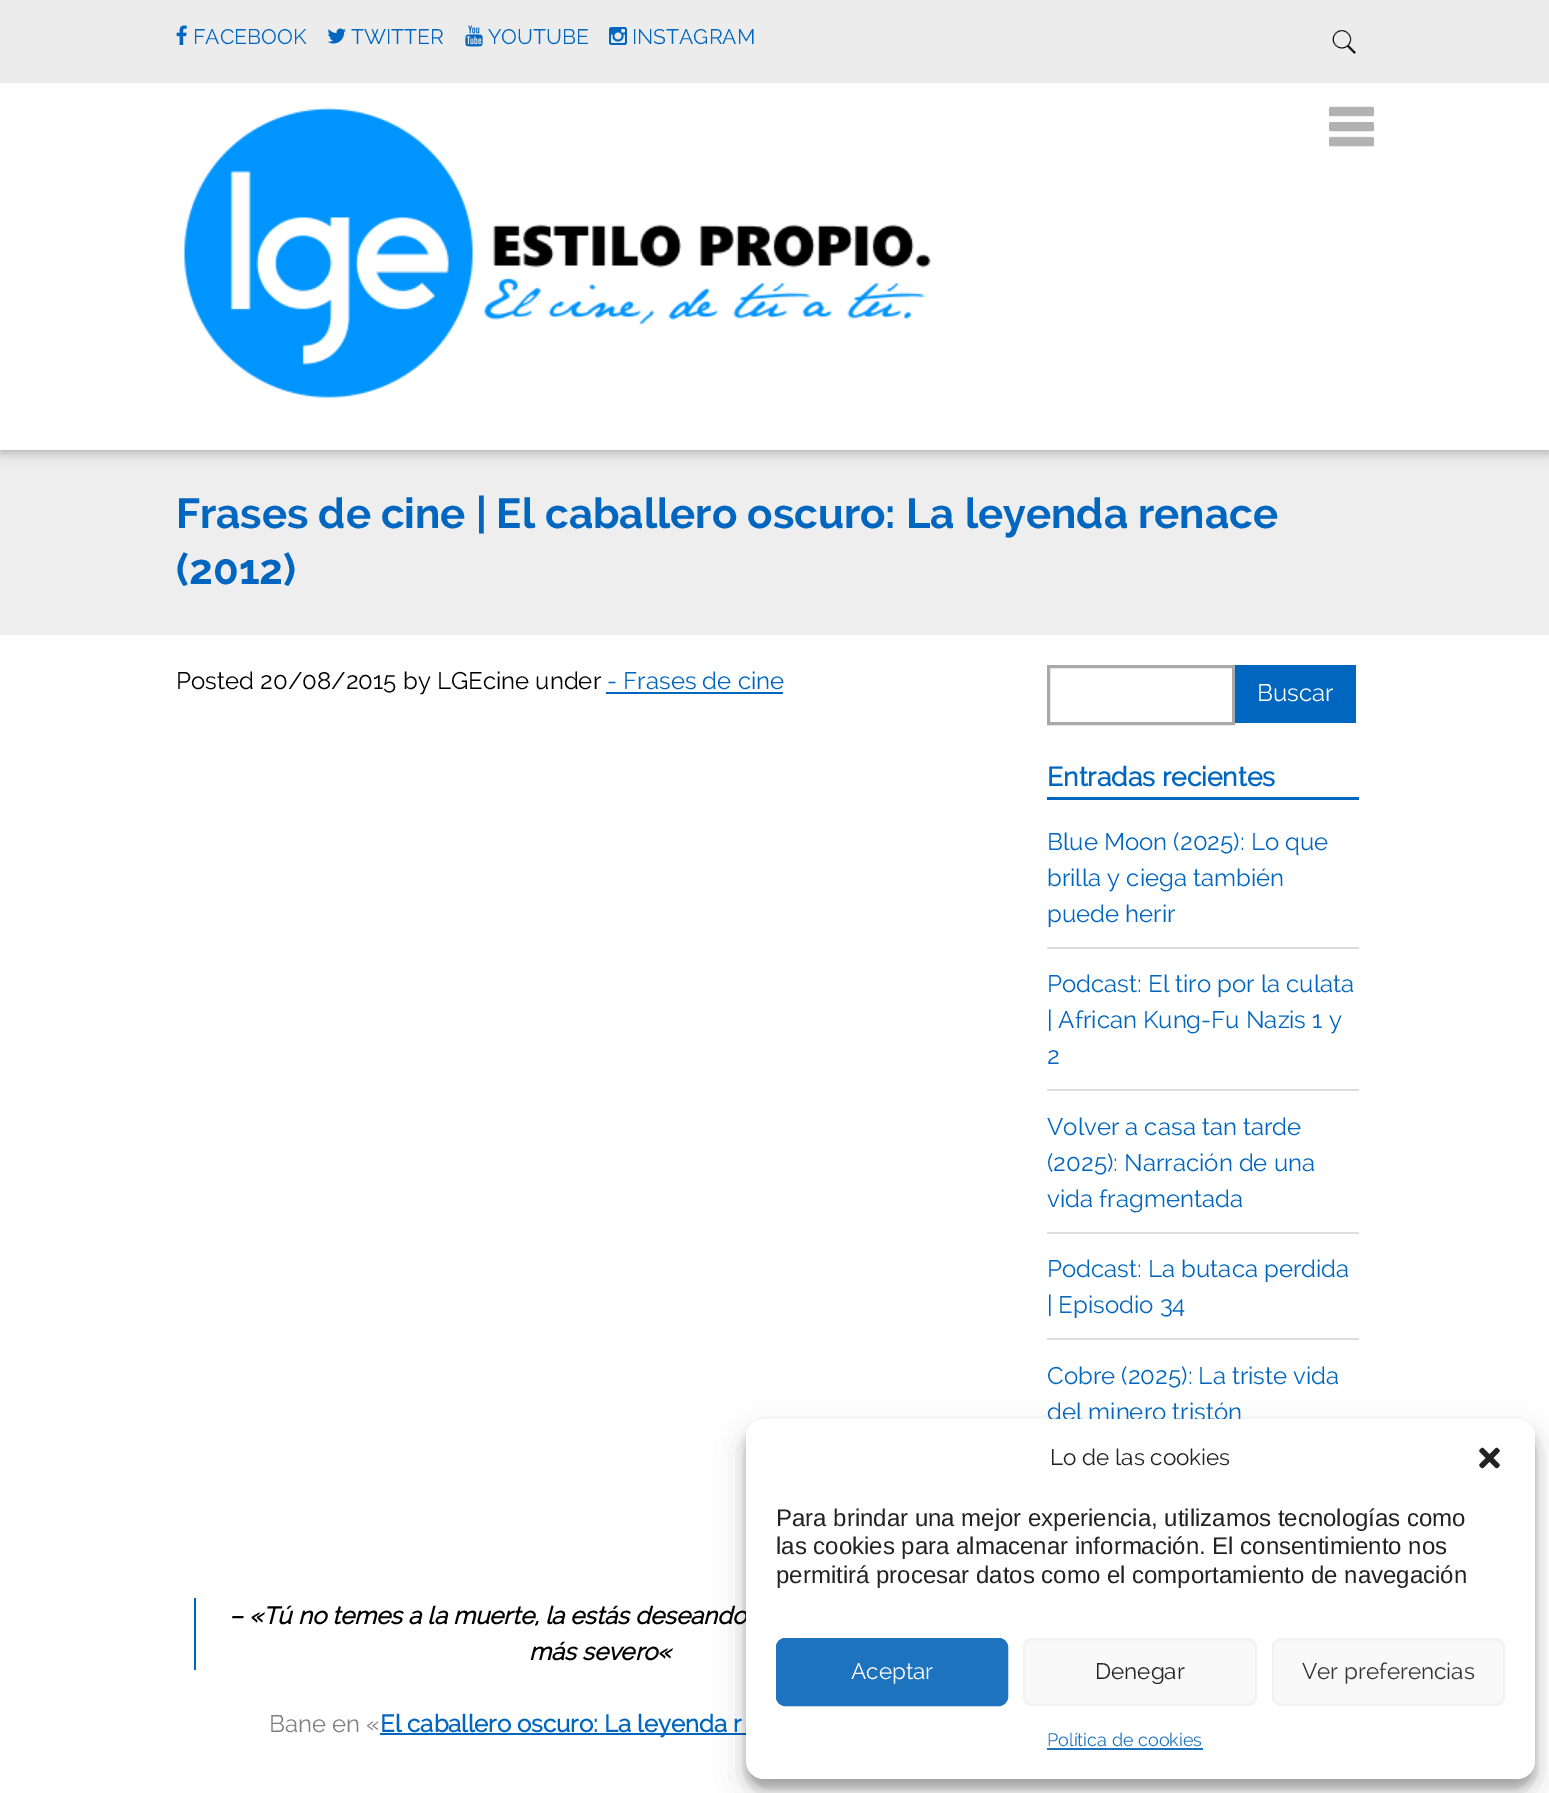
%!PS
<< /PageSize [1549 1793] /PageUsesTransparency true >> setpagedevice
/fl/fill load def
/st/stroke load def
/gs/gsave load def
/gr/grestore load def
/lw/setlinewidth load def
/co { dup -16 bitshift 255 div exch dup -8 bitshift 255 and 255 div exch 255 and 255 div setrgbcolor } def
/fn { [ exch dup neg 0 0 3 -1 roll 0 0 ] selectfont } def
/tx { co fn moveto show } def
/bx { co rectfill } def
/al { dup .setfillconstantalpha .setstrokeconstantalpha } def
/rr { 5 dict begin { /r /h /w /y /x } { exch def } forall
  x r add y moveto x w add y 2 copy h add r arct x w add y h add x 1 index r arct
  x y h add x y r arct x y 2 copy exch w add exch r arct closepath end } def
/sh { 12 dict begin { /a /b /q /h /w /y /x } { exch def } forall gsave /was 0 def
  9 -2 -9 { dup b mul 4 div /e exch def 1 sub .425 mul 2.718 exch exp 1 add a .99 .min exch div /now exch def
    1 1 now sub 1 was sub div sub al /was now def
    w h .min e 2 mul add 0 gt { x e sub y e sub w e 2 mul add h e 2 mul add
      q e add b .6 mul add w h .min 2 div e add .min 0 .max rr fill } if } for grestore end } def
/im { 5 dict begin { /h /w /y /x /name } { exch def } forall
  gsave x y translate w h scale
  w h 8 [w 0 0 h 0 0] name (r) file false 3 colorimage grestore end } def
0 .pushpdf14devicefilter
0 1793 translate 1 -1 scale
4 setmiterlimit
0 0 1549 1793 16#FFFFFF bx
0 450 1549 185 16#EEEEEE bx
gs
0 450 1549 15 rectclip
16#AEAEAE co
0 3 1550 450 0 6 1 sh
gr
0 0 1549 83 16#ECECEC bx
(media/1.raw) 176 25 11 20 im
(media/2.raw) 327 28 19 16 im
(media/3.raw) 465 25 18 22 im
(media/4.raw) 609 27 18 18 im
(media/5.raw) 1332 30 24 24 im
(media/6.raw) 184 107 747 291 im
(media/7.raw) 1329 106 45 41 im
606 692 177 2 16#0066BF bx
194 1598 2 72 16#0066BF bx
380 1733 366 2 16#0066BF bx
16#A9A9A9 co
3 lw
1048.5 666.5 185 57 rectstroke
1235 665 121 58 16#0066BF bx
1047 797 312 3 16#0066BF bx
1047 947 312 2 16#DDDDDD bx
1047 1089 312 2 16#DDDDDD bx
1047 1232 312 2 16#DDDDDD bx
1047 1338 312 2 16#DDDDDD bx
16#000000 co
746 1428 789 360 18 4.5 .23 sh
746 1434 789 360 18 15 .19 sh
(FACEBOOK) 193 44 /Raleway-Regular 21 16#0066BF tx
(TWITTER) 351 44 /Raleway-Regular 21 16#0066BF tx
(YOUTUBE) 488 44 /Raleway-Regular 21 16#0066BF tx
(INSTAGRAM) 632 44 /Raleway-Regular 21 16#0066BF tx
(Frases de cine | El caballero oscuro: La leyenda renace) 176 528 /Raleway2-Bold 42 16#0066BF tx
(\(2012\)) 176 584 /Raleway2-Bold 42 16#0066BF tx
(Posted 20/08/2015 by LGEcine under) 176 689 /Raleway-Regular 24 16#000000 tx
(- Frases de cine) 607 689 /Raleway-Regular 24 16#0066BF tx
(– «Tú no temes a la muerte, la estás deseando) 229 1624 /Raleway-BoldItalic 24 16#000000 tx
(más severo«) 529 1660 /Raleway-BoldItalic 24 16#000000 tx
(Bane en «) 269 1732 /Raleway-Regular 24 16#808080 tx
(El caballero oscuro: La leyenda r) 380 1732 /Raleway-Bold 24 16#0066BF tx
(Buscar) 1257 701 /Raleway-Regular 24 16#FFFFFF tx
(Entradas recientes) 1047 786 /Raleway-Bold 26.5 16#0066BF tx
(Blue Moon \(2025\): Lo que) 1047 850 /Raleway-Regular 24 16#0066BF tx
(brilla y ciega también) 1047 886 /Raleway-Regular 24 16#0066BF tx
(puede herir) 1047 922 /Raleway-Regular 24 16#0066BF tx
(Podcast: El tiro por la culata) 1047 992 /Raleway-Regular 24 16#0066BF tx
(| African Kung-Fu Nazis 1 y) 1047 1028 /Raleway-Regular 24 16#0066BF tx
(2) 1047 1064 /Raleway-Regular 24 16#0066BF tx
(Volver a casa tan tarde) 1047 1135 /Raleway-Regular 24 16#0066BF tx
(\(2025\): Narración de una) 1047 1171 /Raleway-Regular 24 16#0066BF tx
(vida fragmentada) 1047 1207 /Raleway-Regular 24 16#0066BF tx
(Podcast: La butaca perdida) 1047 1277 /Raleway-Regular 24 16#0066BF tx
(| Episodio 34) 1047 1313 /Raleway-Regular 24 16#0066BF tx
(Cobre \(2025\): La triste vida) 1047 1384 /Raleway-Regular 24 16#0066BF tx
(del minero tristón) 1047 1420 /Raleway-Regular 24 16#0066BF tx
16#FFFFFF co
746 1419 789 360 18 rr fl
(Lo de las cookies) 1050 1465 /Raleway-Regular 22.5 16#222222 tx
(media/8.raw) 1479 1447 21 22 im
(Para brindar una mejor experiencia, utilizamos tecnologías como) 776 1526 /LiberationSans-Regular 24 16#222222 tx
(las cookies para almacenar información. El consentimiento nos) 776 1554 /LiberationSans-Regular 24 16#222222 tx
(permitirá procesar datos como el comportamiento de navegación) 776 1583 /LiberationSans-Regular 24 16#222222 tx
16#1E73BE co
777 1639 230 66 8 rr gs fl gr
2 lw
st
(Aceptar) 851 1679 /Raleway-Regular 22.5 16#FFFFFF tx
16#F9F9F9 co
1024 1639 232 66 8 rr gs fl gr
16#F2F2F2 co
st
(Denegar) 1095 1679 /Raleway-Regular 22.5 16#222222 tx
16#F9F9F9 co
1273 1639 231 66 8 rr gs fl gr
16#F2F2F2 co
st
(Ver preferencias) 1302 1679 /Raleway-Regular 22.5 16#333333 tx
(Política de cookies) 1047 1746 /Raleway-Regular 18 16#1E73BE tx
1047 1748 156 2 16#1E73BE bx
.poppdf14devicefilter showpage
